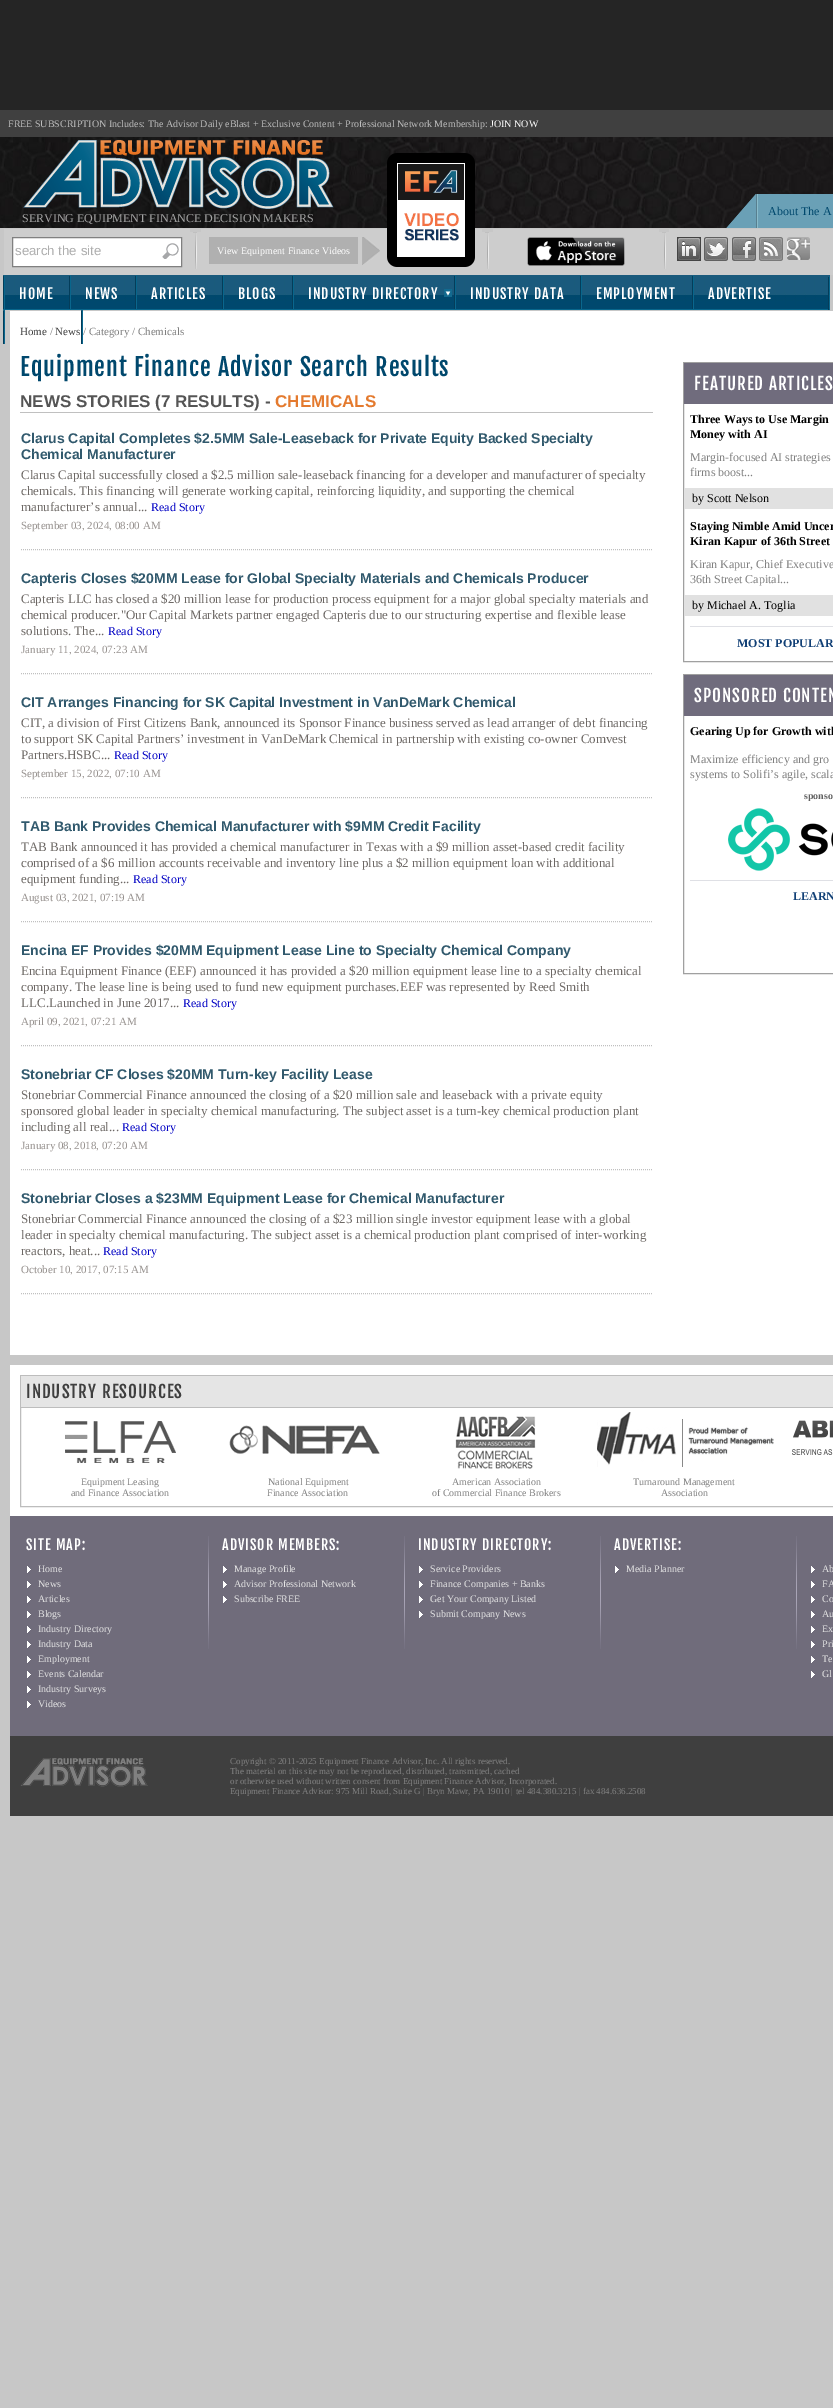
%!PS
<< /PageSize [833 2408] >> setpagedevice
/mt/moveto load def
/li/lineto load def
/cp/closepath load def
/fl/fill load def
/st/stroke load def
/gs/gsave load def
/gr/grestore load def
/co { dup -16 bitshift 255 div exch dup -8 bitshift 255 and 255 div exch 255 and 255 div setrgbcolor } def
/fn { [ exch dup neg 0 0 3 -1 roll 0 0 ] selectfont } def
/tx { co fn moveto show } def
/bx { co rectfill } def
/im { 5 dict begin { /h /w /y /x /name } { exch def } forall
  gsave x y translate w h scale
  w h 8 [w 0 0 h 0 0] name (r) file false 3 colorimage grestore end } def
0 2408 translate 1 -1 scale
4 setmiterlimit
0 0 833 2408 16#C7C7C7 bx
0 0 833 110 16#252525 bx
0 110 833 27 16#404040 bx
(media/1.raw) 0 137 833 91 im
(media/2.raw) 726 194 30 34 im
756 194 1 34 16#587F8F bx
758 194 75 34 16#6AA0B6 bx
757 194 1 34 16#89BCCB bx
(media/3.raw) 23 140 311 69 im
4 232 829 43 16#CDCDCD bx
4 229 186 3 16#CDCDCD bx
16#FFFFFF co
12.5 237.5 mt 181.5 237.5 li 181.5 266.5 li 12.5 266.5 li cp gs fl gr
16#808080 co
st
(media/4.raw) 162 243 17 16 im
(media/5.raw) 195 233 2 36 im
193 232 4 1 16#C0C0C0 bx
201 229 281 3 16#CDCDCD bx
209 237 149 27 16#B0B0B0 bx
(media/6.raw) 362 237 18 28 im
(media/7.raw) 387 153 88 114 im
(media/5.raw) 487 233 2 36 im
485 232 4 1 16#C0C0C0 bx
493 229 166 3 16#CDCDCD bx
(media/8.raw) 527 237 98 29 im
(media/5.raw) 664 233 2 36 im
662 232 4 1 16#C0C0C0 bx
669 229 164 3 16#CDCDCD bx
(media/9.raw) 677 237 24 24 im
(media/10.raw) 704 237 24 24 im
(media/11.raw) 732 237 24 24 im
(media/12.raw) 759 237 24 24 im
(media/13.raw) 787 237 23 23 im
(media/14.raw) 3 275 827 35 im
(media/15.raw) 828 276 2 34 im
(media/15.raw) 3 275 2 34 im
(media/15.raw) 69 275 2 34 im
(media/15.raw) 135 275 2 34 im
(media/15.raw) 222 275 2 34 im
(media/16.raw) 444 289 8 8 im
(media/15.raw) 292 275 2 34 im
(media/15.raw) 454 275 2 34 im
(media/15.raw) 580 275 2 34 im
(media/15.raw) 692 275 2 34 im
(media/15.raw) 3 310 2 34 im
10 311 823 1044 16#FFFFFF bx
(media/15.raw) 81 310 2 34 im
20 412 633 1 16#C0C0C0 bx
[1 1] 0 setdash
21 549.5 mt 652 549.5 li st
21 673.5 mt 652 673.5 li st
21 797.5 mt 652 797.5 li st
21 921.5 mt 652 921.5 li st
21 1045.5 mt 652 1045.5 li st
21 1169.5 mt 652 1169.5 li st
21 1293.5 mt 652 1293.5 li st
16#A0A0A0 co
[] 0 setdash
683.5 362.5 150 299 rectstroke
684 363 149 41 16#706C7D bx
684 488 149 21 16#E1E1E1 bx
684 595 149 21 16#E1E1E1 bx
690 626 143 1 16#DFE0E5 bx
16#A0A0A0 co
683.5 674.5 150 299 rectstroke
684 675 149 41 16#706C7D bx
(media/17.raw) 728 808 105 63 im
690 880 143 1 16#DFE0E5 bx
10 1365 823 151 16#FFFFFF bx
16#BDBDBD co
20.5 1375.5 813 131 rectstroke
21 1376 812 31 16#E5E5E5 bx
21 1407 812 1 16#BDBDBD bx
(media/18.raw) 65 1421 111 42 im
(media/19.raw) 229 1425 151 29 im
(media/20.raw) 455 1416 81 53 im
(media/21.raw) 597 1412 177 55 im
(media/22.raw) 792 1420 41 35 im
10 1516 823 220 16#706C7B bx
(media/23.raw) 27 1566 4 7 im
(media/23.raw) 27 1581 4 7 im
(media/23.raw) 27 1596 4 7 im
(media/23.raw) 27 1611 4 7 im
(media/23.raw) 27 1626 4 7 im
(media/23.raw) 27 1641 4 7 im
(media/23.raw) 27 1656 4 7 im
(media/23.raw) 27 1671 4 7 im
(media/23.raw) 27 1686 4 7 im
(media/23.raw) 27 1701 4 7 im
(media/24.raw) 208 1536 1 113 im
(media/23.raw) 223 1566 4 7 im
(media/23.raw) 223 1581 4 7 im
(media/23.raw) 223 1596 4 7 im
(media/24.raw) 404 1536 1 113 im
(media/23.raw) 419 1566 4 7 im
(media/23.raw) 419 1581 4 7 im
(media/23.raw) 419 1596 4 7 im
(media/23.raw) 419 1611 4 7 im
(media/24.raw) 600 1536 1 113 im
(media/23.raw) 615 1566 4 7 im
(media/24.raw) 796 1536 1 113 im
(media/23.raw) 811 1566 4 7 im
(media/23.raw) 811 1581 4 7 im
(media/23.raw) 811 1596 4 7 im
(media/23.raw) 811 1611 4 7 im
(media/23.raw) 811 1626 4 7 im
(media/23.raw) 811 1641 4 7 im
(media/23.raw) 811 1656 4 7 im
(media/23.raw) 811 1671 4 7 im
10 1736 823 80 16#3F3F3F bx
(media/25.raw) 20 1758 128 29 im
(FREE SUBSCRIPTION Includes: The Advisor Daily eBlast + Exclusive Content + Professional Network Membership:) 8 127 /LiberationSerif-Regular 10 16#BEBEBE tx
(JOIN NOW) 490 127 /LiberationSerif-Regular 10 16#FFFFFF tx
(About The A) 768 215 /LiberationSerif-Regular 12 16#00486D tx
(SERVING EQUIPMENT FINANCE DECISION MAKERS) 22 222 /LiberationSerif-Regular 12 16#A2A2A2 tx
(search the site) 15 255 /LiberationSans-Regular 13.25 16#AEAEAE tx
(View Equipment Finance Videos) 217 254 /LiberationSerif-Regular 10 16#FFFFFF tx
/FjallaOne-Regular 14 fn
19 299 mt 1 0 (HOME) ashow
85 299 mt 1 0 (NEWS) ashow
151 299 mt 1 0 (ARTICLES) ashow
238 299 mt 1 0 (BLOGS) ashow
308 299 mt 1 0 (INDUSTRY DIRECTORY) ashow
470 299 mt 1 0 (INDUSTRY DATA) ashow
596 299 mt 1 0 (EMPLOYMENT) ashow
708 299 mt 1 0 (ADVERTISE) ashow
(Home) 20 335 /LiberationSerif-Regular 11 16#3F3F3F tx
(/) 50 335 /LiberationSerif-Regular 11 16#808080 tx
(News) 55 335 /LiberationSerif-Regular 11 16#3F3F3F tx
(/ Category / Chemicals) 83 335 /LiberationSerif-Regular 11 16#808080 tx
/FjallaOne-Regular 24 fn
16#00486D co
20 376 mt 1 0 (Equipment Finance Advisor Search Results) ashow
(NEWS STORIES \(7 RESULTS\) -) 20 407 /LiberationSans-Bold 17 16#555555 tx
(CHEMICALS) 275 407 /LiberationSans-Bold 17 16#E47A2E tx
(Clarus Capital Completes $2.5MM Sale-Leaseback for Private Equity Backed Specialty) 21 443 /LiberationSans-Bold 14 16#31596D tx
(Chemical Manufacturer) 21 459 /LiberationSans-Bold 14 16#31596D tx
(Clarus Capital successfully closed a $2.5 million sale-leaseback financing for a developer and manufacturer of specialty) 21 479 /LiberationSerif-Regular 13 16#6D6865 tx
(chemicals. This financing will generate working capital, reinforcing liquidity, and supporting the chemical) 21 495 /LiberationSerif-Regular 13 16#6D6865 tx
(manufacturer’s annual...) 21 511 /LiberationSerif-Regular 13 16#6D6865 tx
(Read Story) 151 511 /LiberationSerif-Regular 12 16#0000C4 tx
(September 03, 2024, 08:00 AM) 21 529 /LiberationSerif-Regular 11 16#97928F tx
(Capteris Closes $20MM Lease for Global Specialty Materials and Chemicals Producer) 21 583 /LiberationSans-Bold 14 16#31596D tx
(Capteris LLC has closed a $20 million lease for production process equipment for a major global specialty materials and) 21 603 /LiberationSerif-Regular 13 16#6D6865 tx
(chemical producer."Our Capital Markets partner engaged Capteris due to our structuring expertise and flexible lease) 21 619 /LiberationSerif-Regular 13 16#6D6865 tx
(solutions. The...) 21 635 /LiberationSerif-Regular 13 16#6D6865 tx
(Read Story) 108 635 /LiberationSerif-Regular 12 16#0000C4 tx
(January 11, 2024, 07:23 AM) 21 653 /LiberationSerif-Regular 11 16#97928F tx
(CIT Arranges Financing for SK Capital Investment in VanDeMark Chemical) 21 707 /LiberationSans-Bold 14 16#31596D tx
(CIT, a division of First Citizens Bank, announced its Sponsor Finance business served as lead arranger of debt financing) 21 727 /LiberationSerif-Regular 13 16#6D6865 tx
(to support SK Capital Partners’ investment in VanDeMark Chemical in partnership with existing co-owner Comvest) 21 743 /LiberationSerif-Regular 13 16#6D6865 tx
(Partners.HSBC...) 21 759 /LiberationSerif-Regular 13 16#6D6865 tx
(Read Story) 114 759 /LiberationSerif-Regular 12 16#0000C4 tx
(September 15, 2022, 07:10 AM) 21 777 /LiberationSerif-Regular 11 16#97928F tx
(TAB Bank Provides Chemical Manufacturer with $9MM Credit Facility) 21 831 /LiberationSans-Bold 14 16#31596D tx
(TAB Bank announced it has provided a chemical manufacturer in Texas with a $9 million asset-based credit facility) 21 851 /LiberationSerif-Regular 13 16#6D6865 tx
(comprised of a $6 million accounts receivable and inventory line plus a $2 million equipment loan with additional) 21 867 /LiberationSerif-Regular 13 16#6D6865 tx
(equipment funding...) 21 883 /LiberationSerif-Regular 13 16#6D6865 tx
(Read Story) 133 883 /LiberationSerif-Regular 12 16#0000C4 tx
(August 03, 2021, 07:19 AM) 21 901 /LiberationSerif-Regular 11 16#97928F tx
(Encina EF Provides $20MM Equipment Lease Line to Specialty Chemical Company) 21 955 /LiberationSans-Bold 14 16#31596D tx
(Encina Equipment Finance \(EEF\) announced it has provided a $20 million equipment lease line to a specialty chemical) 21 975 /LiberationSerif-Regular 13 16#6D6865 tx
(company. The lease line is being used to fund new equipment purchases.EEF was represented by Reed Smith) 21 991 /LiberationSerif-Regular 13 16#6D6865 tx
(LLC.Launched in June 2017...) 21 1007 /LiberationSerif-Regular 13 16#6D6865 tx
(Read Story) 183 1007 /LiberationSerif-Regular 12 16#0000C4 tx
(April 09, 2021, 07:21 AM) 21 1025 /LiberationSerif-Regular 11 16#97928F tx
(Stonebriar CF Closes $20MM Turn-key Facility Lease) 21 1079 /LiberationSans-Bold 14 16#31596D tx
(Stonebriar Commercial Finance announced the closing of a $20 million sale and leaseback with a private equity) 21 1099 /LiberationSerif-Regular 13 16#6D6865 tx
(sponsored global leader in specialty chemical manufacturing. The subject asset is a turn-key chemical production plant) 21 1115 /LiberationSerif-Regular 13 16#6D6865 tx
(including all real...) 21 1131 /LiberationSerif-Regular 13 16#6D6865 tx
(Read Story) 122 1131 /LiberationSerif-Regular 12 16#0000C4 tx
(January 08, 2018, 07:20 AM) 21 1149 /LiberationSerif-Regular 11 16#97928F tx
(Stonebriar Closes a $23MM Equipment Lease for Chemical Manufacturer) 21 1203 /LiberationSans-Bold 14 16#31596D tx
(Stonebriar Commercial Finance announced the closing of a $23 million single investor equipment lease with a global) 21 1223 /LiberationSerif-Regular 13 16#6D6865 tx
(leader in specialty chemical manufacturing. The subject asset is a chemical production plant comprised of inter-working) 21 1239 /LiberationSerif-Regular 13 16#6D6865 tx
(reactors, heat...) 21 1255 /LiberationSerif-Regular 13 16#6D6865 tx
(Read Story) 103 1255 /LiberationSerif-Regular 12 16#0000C4 tx
(October 10, 2017, 07:15 AM) 21 1273 /LiberationSerif-Regular 11 16#97928F tx
/FjallaOne-Regular 17 fn
16#FFFFFF co
694 390 mt 1 0 (FEATURED ARTICLES) ashow
(Three Ways to Use Margin) 690 423 /LiberationSerif-Bold 12 16#000000 tx
(Money with AI) 690 438 /LiberationSerif-Bold 12 16#000000 tx
(Margin-focused AI strategies) 690 461 /LiberationSerif-Regular 12 16#808080 tx
(firms boost...) 690 476 /LiberationSerif-Regular 12 16#808080 tx
(by Scott Nelson) 692 502 /LiberationSerif-Regular 12 16#000000 tx
(Staying Nimble Amid Uncer) 690 530 /LiberationSerif-Bold 12 16#000000 tx
(Kiran Kapur of 36th Street) 690 545 /LiberationSerif-Bold 12 16#000000 tx
(Kiran Kapur, Chief Executive) 690 568 /LiberationSerif-Regular 12 16#808080 tx
(36th Street Capital...) 690 583 /LiberationSerif-Regular 12 16#808080 tx
(by Michael A. Toglia) 692 609 /LiberationSerif-Regular 12 16#000000 tx
(MOST POPULAR) 737 647 /LiberationSerif-Bold 12 16#114076 tx
/FjallaOne-Regular 17 fn
16#FFFFFF co
694 702 mt 1 0 (SPONSORED CONTEN) ashow
(Gearing Up for Growth with) 690 735 /LiberationSerif-Bold 12 16#000000 tx
(Maximize efficiency and gro) 690 763 /LiberationSerif-Regular 12 16#808080 tx
(systems to Solifi’s agile, scala) 690 778 /LiberationSerif-Regular 12 16#808080 tx
(sponso) 804 799 /LiberationSerif-Bold 10 16#616161 tx
(LEARN) 793 900 /LiberationSerif-Bold 12 16#114076 tx
/FjallaOne-Regular 17 fn
16#3F3F3F co
26 1398 mt 1 0 (INDUSTRY RESOURCES) ashow
(Equipment Leasing) 81 1485 /LiberationSerif-Regular 10 16#808080 tx
(and Finance Association) 71 1496 /LiberationSerif-Regular 10 16#808080 tx
(National Equipment) 268 1485 /LiberationSerif-Regular 10 16#808080 tx
(Finance Association) 267 1496 /LiberationSerif-Regular 10 16#808080 tx
(American Association) 452 1485 /LiberationSerif-Regular 10 16#808080 tx
(of Commercial Finance Brokers) 432 1496 /LiberationSerif-Regular 10 16#808080 tx
(Turnaround Management) 633 1485 /LiberationSerif-Regular 10 16#808080 tx
(Association) 661 1496 /LiberationSerif-Regular 10 16#808080 tx
/FjallaOne-Regular 14 fn
16#FFFFFF co
26 1550 mt 1 0 (SITE MAP:) ashow
(Home) 38 1572 /LiberationSerif-Regular 10 16#E5E5E5 tx
(News) 38 1587 /LiberationSerif-Regular 10 16#E5E5E5 tx
(Articles) 38 1602 /LiberationSerif-Regular 10 16#E5E5E5 tx
(Blogs) 38 1617 /LiberationSerif-Regular 10 16#E5E5E5 tx
(Industry Directory) 38 1632 /LiberationSerif-Regular 10 16#E5E5E5 tx
(Industry Data) 38 1647 /LiberationSerif-Regular 10 16#E5E5E5 tx
(Employment) 38 1662 /LiberationSerif-Regular 10 16#E5E5E5 tx
(Events Calendar) 38 1677 /LiberationSerif-Regular 10 16#E5E5E5 tx
(Industry Surveys) 38 1692 /LiberationSerif-Regular 10 16#E5E5E5 tx
(Videos) 38 1707 /LiberationSerif-Regular 10 16#E5E5E5 tx
/FjallaOne-Regular 14 fn
16#FFFFFF co
222 1550 mt 1 0 (ADVISOR MEMBERS:) ashow
(Manage Profile) 234 1572 /LiberationSerif-Regular 10 16#E5E5E5 tx
(Advisor Professional Network) 234 1587 /LiberationSerif-Regular 10 16#E5E5E5 tx
(Subscribe FREE) 234 1602 /LiberationSerif-Regular 10 16#E5E5E5 tx
/FjallaOne-Regular 14 fn
16#FFFFFF co
418 1550 mt 1 0 (INDUSTRY DIRECTORY:) ashow
(Service Providers) 430 1572 /LiberationSerif-Regular 10 16#E5E5E5 tx
(Finance Companies + Banks) 430 1587 /LiberationSerif-Regular 10 16#E5E5E5 tx
(Get Your Company Listed) 430 1602 /LiberationSerif-Regular 10 16#E5E5E5 tx
(Submit Company News) 430 1617 /LiberationSerif-Regular 10 16#E5E5E5 tx
/FjallaOne-Regular 14 fn
16#FFFFFF co
614 1550 mt 1 0 (ADVERTISE:) ashow
(Media Planner) 626 1572 /LiberationSerif-Regular 10 16#E5E5E5 tx
(Ab) 822 1572 /LiberationSerif-Regular 10 16#E5E5E5 tx
(FA) 822 1587 /LiberationSerif-Regular 10 16#E5E5E5 tx
(Co) 822 1602 /LiberationSerif-Regular 10 16#E5E5E5 tx
(Au) 822 1617 /LiberationSerif-Regular 10 16#E5E5E5 tx
(Ex) 822 1632 /LiberationSerif-Regular 10 16#E5E5E5 tx
(Pri) 822 1647 /LiberationSerif-Regular 10 16#E5E5E5 tx
(Te) 822 1662 /LiberationSerif-Regular 10 16#E5E5E5 tx
(Gl) 822 1677 /LiberationSerif-Regular 10 16#E5E5E5 tx
(Copyright © 2011-2025 Equipment Finance Advisor, Inc. All rights reserved.) 230 1764 /LiberationSerif-Regular 9 16#808080 tx
(The material on this site may not be reproduced, distributed, transmitted, cached) 230 1774 /LiberationSerif-Regular 9 16#808080 tx
(or otherwise used without written consent from Equipment Finance Advisor, Incorporated.) 230 1784 /LiberationSerif-Regular 9 16#808080 tx
(Equipment Finance Advisor: 975 Mill Road, Suite G | Bryn Mawr, PA 19010 | tel 484.380.3215 | fax 484.636.2508) 230 1794 /LiberationSerif-Regular 9 16#808080 tx
showpage
